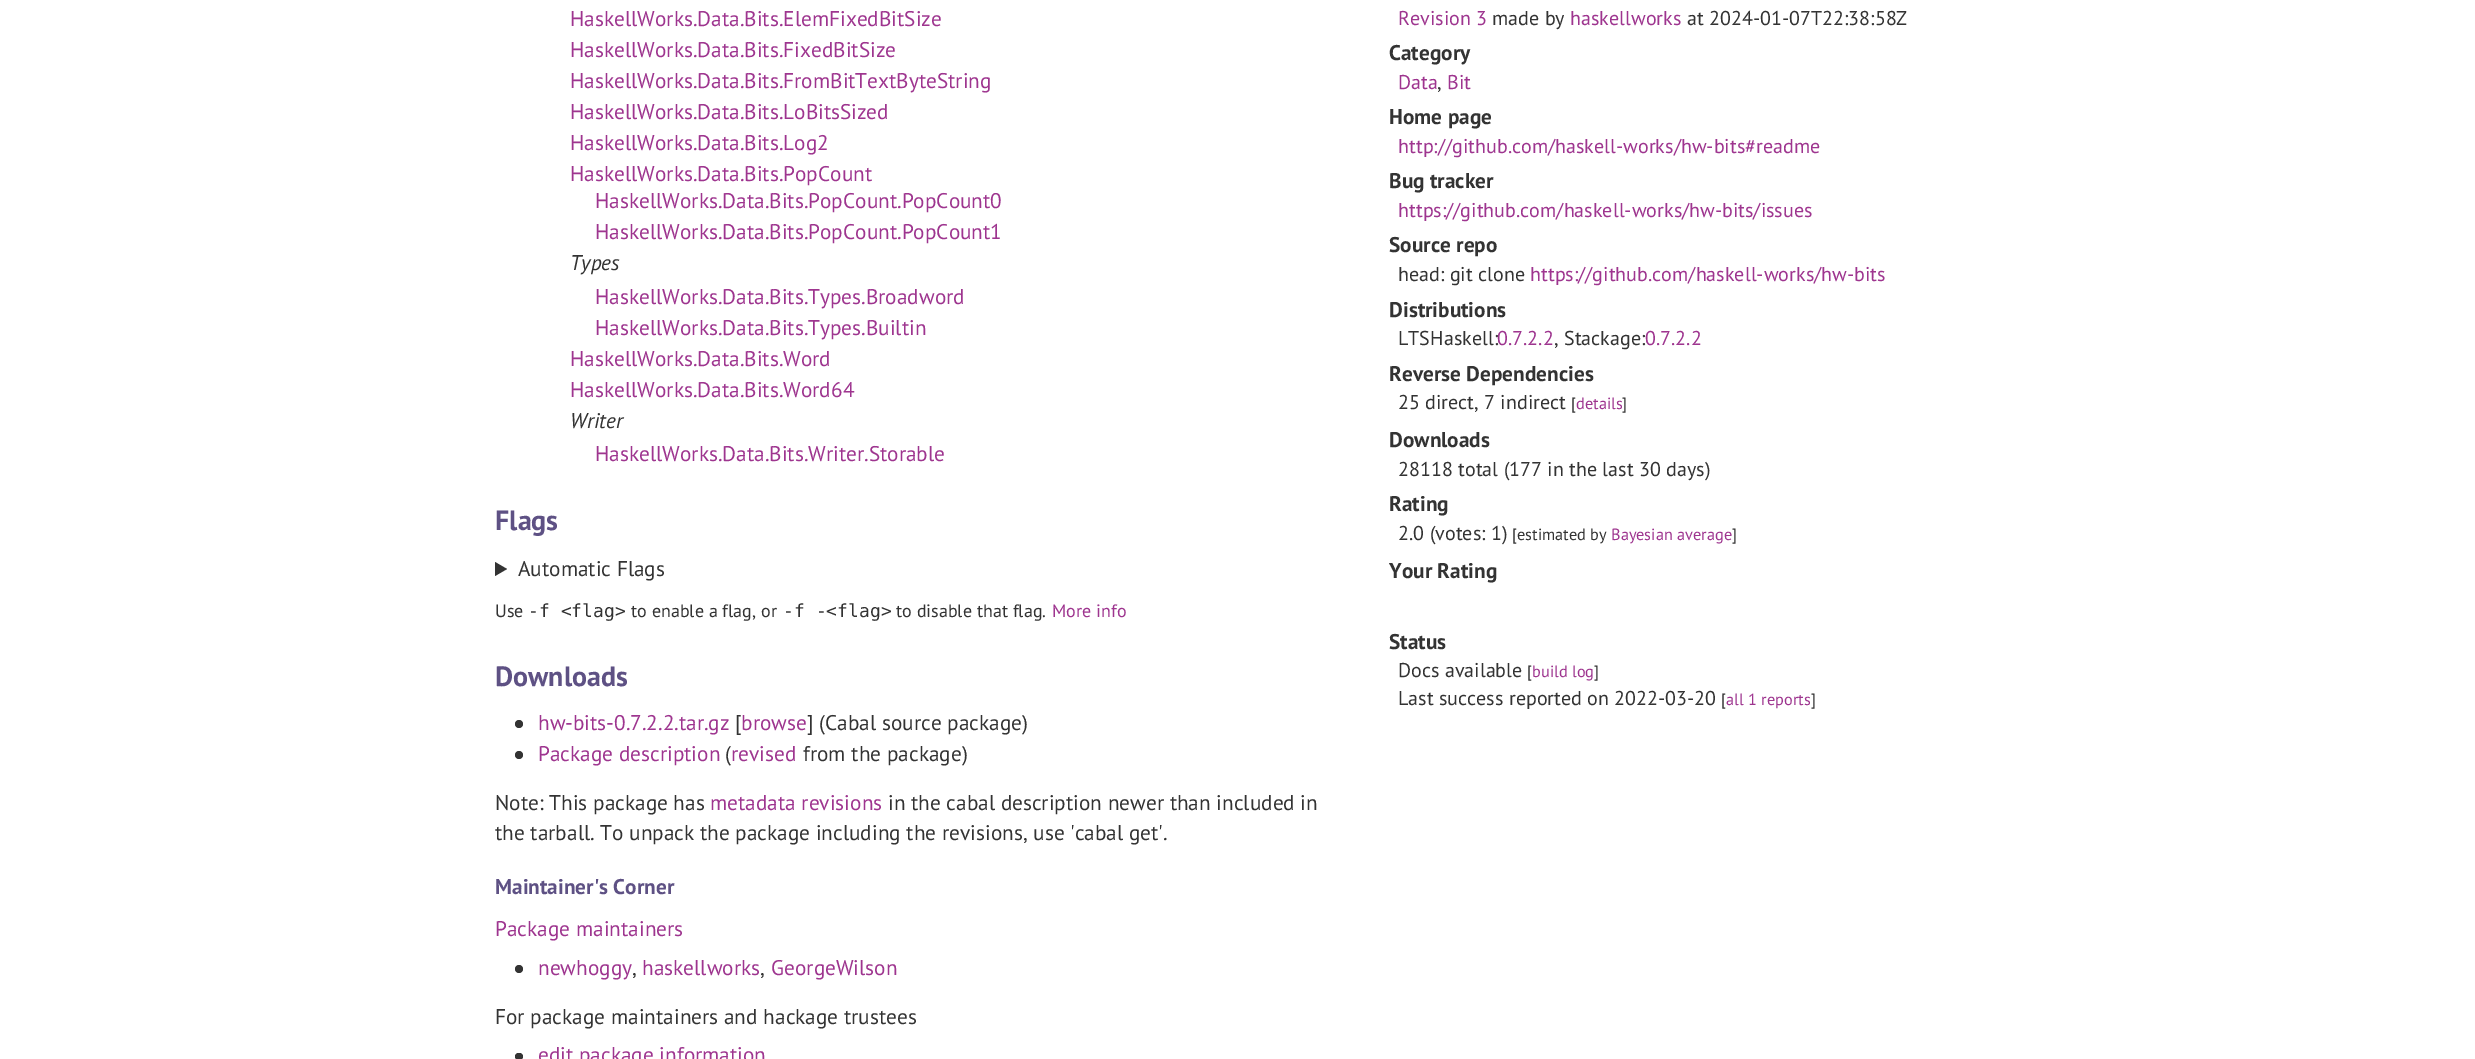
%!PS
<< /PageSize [2475 1059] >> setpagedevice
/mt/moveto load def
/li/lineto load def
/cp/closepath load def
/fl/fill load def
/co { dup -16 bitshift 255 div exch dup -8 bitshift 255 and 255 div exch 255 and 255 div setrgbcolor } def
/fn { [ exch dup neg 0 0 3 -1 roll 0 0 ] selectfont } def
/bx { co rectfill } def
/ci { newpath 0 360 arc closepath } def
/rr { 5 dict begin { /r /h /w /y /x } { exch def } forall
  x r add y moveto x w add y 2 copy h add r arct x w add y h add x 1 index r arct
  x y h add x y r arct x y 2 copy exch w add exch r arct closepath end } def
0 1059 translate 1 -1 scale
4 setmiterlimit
0 0 2475 1059 16#FFFFFF bx
16#333333 co
495 562 mt 507 569 li 495 576 li cp fl
519 724 4 ci fl
519 755 4 ci fl
519 969 4 ci fl
515 1053 8 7 3.5 rr fl
/PTSans-Regular 21.25 fn
16#9E358F co
570 26 mt .03 0 (HaskellWorks.Data.Bits.ElemFixedBitSize) ashow
570 57 mt .03 0 (HaskellWorks.Data.Bits.FixedBitSize) ashow
570 88 mt .03 0 (HaskellWorks.Data.Bits.FromBitTextByteString) ashow
570 119 mt .03 0 (HaskellWorks.Data.Bits.LoBitsSized) ashow
570 150 mt .03 0 (HaskellWorks.Data.Bits.Log2) ashow
570 181 mt .03 0 (HaskellWorks.Data.Bits.PopCount) ashow
595 208 mt .03 0 (HaskellWorks.Data.Bits.PopCount.PopCount0) ashow
595 239 mt .03 0 (HaskellWorks.Data.Bits.PopCount.PopCount1) ashow
/PTSans-Italic 21.25 fn
16#333333 co
570 270 mt .03 0 (Types) ashow
/PTSans-Regular 21.25 fn
16#9E358F co
595 304 mt .03 0 (HaskellWorks.Data.Bits.Types.Broadword) ashow
595 335 mt .03 0 (HaskellWorks.Data.Bits.Types.Builtin) ashow
570 366 mt .03 0 (HaskellWorks.Data.Bits.Word) ashow
570 397 mt .03 0 (HaskellWorks.Data.Bits.Word64) ashow
/PTSans-Italic 21.25 fn
16#333333 co
570 428 mt .03 0 (Writer) ashow
/PTSans-Regular 21.25 fn
16#9E358F co
595 461 mt .03 0 (HaskellWorks.Data.Bits.Writer.Storable) ashow
/PTSans-Bold 28 fn
16#5E5184 co
495 530 mt .03 0 (Flags) ashow
/PTSans-Regular 21.25 fn
16#333333 co
518 576 mt .03 0 (Automatic Flags) ashow
/PTSans-Regular 18 fn
495 617 mt .03 0 (Use) ashow
/DejaVuSansMono-Regular 18 fn
528 617 mt .03 0 (-f <flag>) ashow
/PTSans-Regular 18 fn
631 617 mt .03 0 (to enable a flag, or) ashow
/DejaVuSansMono-Regular 18 fn
783 617 mt .03 0 (-f -<flag>) ashow
/PTSans-Regular 18 fn
896 617 mt .03 0 (to disable that flag.) ashow
16#9E358F co
1052 617 mt .03 0 (More info) ashow
/PTSans-Bold 28 fn
16#5E5184 co
495 686 mt .03 0 (Downloads) ashow
/PTSans-Regular 21.25 fn
16#9E358F co
538 730 mt .03 0 (hw-bits-0.7.2.2.tar.gz) ashow
16#333333 co
735 730 mt .03 0 ([) ashow
16#9E358F co
741 730 mt .03 0 (browse) ashow
16#333333 co
807 730 mt .03 0 (] \(Cabal source package\)) ashow
16#9E358F co
538 761 mt .03 0 (Package description) ashow
16#333333 co
725 761 mt .03 0 (\() ashow
16#9E358F co
731 761 mt .03 0 (revised) ashow
16#333333 co
803 761 mt .03 0 (from the package\)) ashow
495 810 mt .03 0 (Note: This package has) ashow
16#9E358F co
710 810 mt .03 0 (metadata revisions) ashow
16#333333 co
888 810 mt .03 0 (in the cabal description newer than included in) ashow
495 840 mt .03 0 (the tarball. To unpack the package including the revisions, use 'cabal get'.) ashow
/PTSans-Bold 21.25 fn
16#5E5184 co
495 894 mt .03 0 (Maintainer's Corner) ashow
/PTSans-Regular 21.25 fn
16#9E358F co
495 936 mt .03 0 (Package maintainers) ashow
538 975 mt .03 0 (newhoggy) ashow
642 975 mt .03 0 (haskellworks) ashow
771 975 mt .03 0 (GeorgeWilson) ashow
16#333333 co
632 975 mt .03 0 (,) ashow
760 975 mt .03 0 (,) ashow
495 1024 mt .03 0 (For package maintainers and hackage trustees) ashow
16#9E358F co
538 1062 mt .03 0 (edit package information) ashow
/PTSans-Regular 20 fn
1398 25 mt .03 0 (Revision 3) ashow
16#333333 co
1492 25 mt .03 0 (made by) ashow
16#9E358F co
1570 25 mt .03 0 (haskellworks) ashow
16#333333 co
1687 25 mt .03 0 (at 2024-01-07T22:38:58Z) ashow
/PTSans-Bold 21.25 fn
1389 60 mt .03 0 (Category) ashow
/PTSans-Regular 20 fn
16#9E358F co
1398 89 mt .03 0 (Data) ashow
16#333333 co
1437 89 mt .03 0 (,) ashow
16#9E358F co
1447 89 mt .03 0 (Bit) ashow
/PTSans-Bold 21.25 fn
16#333333 co
1389 124 mt .03 0 (Home page) ashow
/PTSans-Regular 20 fn
16#9E358F co
1398 153 mt .03 0 (http://github.com/haskell-works/hw-bits#readme) ashow
/PTSans-Bold 21.25 fn
16#333333 co
1389 188 mt .03 0 (Bug tracker) ashow
/PTSans-Regular 20 fn
16#9E358F co
1398 217 mt .03 0 (https://github.com/haskell-works/hw-bits/issues) ashow
/PTSans-Bold 21.25 fn
16#333333 co
1389 252 mt .03 0 (Source repo) ashow
/PTSans-Regular 20 fn
1398 281 mt .03 0 (head: git clone) ashow
16#9E358F co
1530 281 mt .03 0 (https://github.com/haskell-works/hw-bits) ashow
/PTSans-Bold 21.25 fn
16#333333 co
1389 317 mt .03 0 (Distributions) ashow
/PTSans-Regular 20 fn
1398 345 mt .03 0 (LTSHaskell:) ashow
16#9E358F co
1497 345 mt .03 0 (0.7.2.2) ashow
16#333333 co
1554 345 mt .03 0 (, Stackage:) ashow
16#9E358F co
1645 345 mt .03 0 (0.7.2.2) ashow
/PTSans-Bold 21.25 fn
16#333333 co
1389 381 mt .03 0 (Reverse Dependencies) ashow
/PTSans-Regular 20 fn
1398 409 mt .03 0 (25 direct, 7 indirect) ashow
/PTSans-Regular 16.25 fn
1571 409 mt .03 0 ([) ashow
16#9E358F co
1576 409 mt .03 0 (details) ashow
16#333333 co
1622 409 mt .03 0 (]) ashow
/PTSans-Bold 21.25 fn
1389 447 mt .03 0 (Downloads) ashow
/PTSans-Regular 20 fn
1398 476 mt .03 0 (28118 total \(177 in the last 30 days\)) ashow
/PTSans-Bold 21.25 fn
1389 511 mt .03 0 (Rating) ashow
/PTSans-Regular 20 fn
1398 540 mt .03 0 (2.0 \(votes: 1\)) ashow
/PTSans-Regular 16.25 fn
1512 540 mt .03 0 ([estimated by) ashow
16#9E358F co
1611 540 mt .03 0 (Bayesian average) ashow
16#333333 co
1732 540 mt .03 0 (]) ashow
/PTSans-Bold 21.25 fn
1389 578 mt .03 0 (Your Rating) ashow
1389 649 mt .03 0 (Status) ashow
/PTSans-Regular 20 fn
1398 677 mt .03 0 (Docs available) ashow
/PTSans-Regular 16.25 fn
1527 677 mt .03 0 ([) ashow
16#9E358F co
1532 677 mt .03 0 (build log) ashow
16#333333 co
1594 677 mt .03 0 (]) ashow
/PTSans-Regular 20 fn
1398 705 mt .03 0 (Last success reported on 2022-03-20) ashow
/PTSans-Regular 16.25 fn
1721 705 mt .03 0 ([) ashow
16#9E358F co
1726 705 mt .03 0 (all 1 reports) ashow
16#333333 co
1811 705 mt .03 0 (]) ashow
showpage
